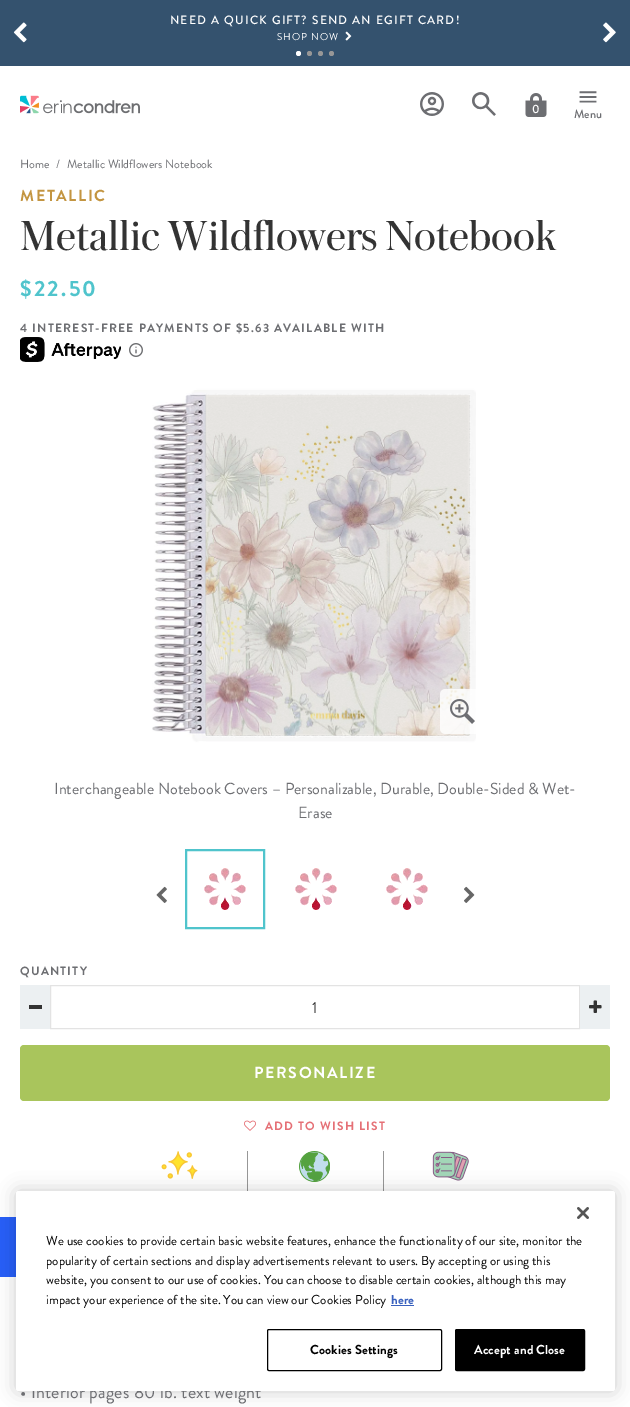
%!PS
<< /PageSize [630 1407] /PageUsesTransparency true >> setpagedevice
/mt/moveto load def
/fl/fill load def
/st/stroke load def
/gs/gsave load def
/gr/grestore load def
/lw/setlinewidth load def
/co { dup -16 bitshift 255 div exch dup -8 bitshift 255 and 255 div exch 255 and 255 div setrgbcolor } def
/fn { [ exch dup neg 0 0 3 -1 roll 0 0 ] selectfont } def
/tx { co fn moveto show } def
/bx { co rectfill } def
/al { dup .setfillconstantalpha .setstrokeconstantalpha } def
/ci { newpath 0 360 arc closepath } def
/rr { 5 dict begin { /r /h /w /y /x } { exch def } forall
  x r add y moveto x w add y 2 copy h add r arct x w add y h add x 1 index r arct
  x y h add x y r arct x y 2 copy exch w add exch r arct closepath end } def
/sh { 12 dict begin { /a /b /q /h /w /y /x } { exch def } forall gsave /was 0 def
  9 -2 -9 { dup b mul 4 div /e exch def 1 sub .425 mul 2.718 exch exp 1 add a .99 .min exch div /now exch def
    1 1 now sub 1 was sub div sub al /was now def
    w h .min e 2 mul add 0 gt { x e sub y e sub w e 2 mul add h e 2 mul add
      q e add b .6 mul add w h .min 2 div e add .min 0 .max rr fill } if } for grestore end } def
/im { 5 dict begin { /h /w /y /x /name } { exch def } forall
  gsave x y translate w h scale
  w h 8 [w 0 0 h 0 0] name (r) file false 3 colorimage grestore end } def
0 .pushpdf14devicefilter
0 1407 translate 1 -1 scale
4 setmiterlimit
0 0 630 1407 16#FFFFFF bx
0 0 630 66 16#34526E bx
(media/1.raw) 13 22 14 21 im
(media/2.raw) 345 31 7 10 im
(media/3.raw) 603 22 13 21 im
16#FFFFFF co
298.5 53.5 2.5 ci fl
16#979797 co
309.5 53.5 2.5 ci fl
320.5 53.5 2.5 ci fl
331.5 53.5 2.5 ci fl
(media/4.raw) 20 95 120 19 im
(media/5.raw) 420 92 24 24 im
(media/6.raw) 472 92 24 24 im
(media/7.raw) 525 93 22 24 im
(media/8.raw) 579 91 18 12 im
(media/9.raw) 0 1217 16 60 im
(media/10.raw) 20 337 101 25 im
(media/11.raw) 129 343 14 14 im
(media/13.raw) 205 394 266 342 im
(media/12.raw) 152 388 324 356 im
(media/14.raw) 440 689 36 45 im
(media/15.raw) 156 886 11 17 im
16#50C4CC co
2 lw
186 850 78 78 rectstroke
(media/16.raw) 204 868 42 42 im
(media/16.raw) 295 868 42 42 im
(media/16.raw) 386 868 42 42 im
(media/17.raw) 464 886 11 17 im
20 985 30 44 16#ECF0F2 bx
29 1005 13 4 16#333333 bx
16#E3E3E3 co
1 lw
50.5 985.5 529 43 rectstroke
580 985 30 44 16#ECF0F2 bx
(media/18.raw) 589 1000 13 13 im
16#A9C55C co
20 1045 590 56 4 rr fl
(media/19.raw) 244 1120 12 11 im
(media/20.raw) 161 1151 37 28 im
247 1151 1 40 16#979797 bx
(media/21.raw) 299 1151 31 31 im
383 1151 1 40 16#979797 bx
(media/22.raw) 432 1151 37 30 im
16#000000 co
16 1191 599 200 2.5 9 .2 sh
/BrandonGrotesque-Medium 12 fn
16#FFFFFF co
170 24 mt 1.2 0 (NEED A QUICK GIFT? SEND AN EGIFT CARD!) ashow
/BrandonGrotesque-Regular 10 fn
277 40 mt 1 0 (SHOP NOW) ashow
(0) 532 113 /BrandonGrotesque-Medium 12 16#FFFFFF tx
(Menu) 574 118 /BrandonGrotesque-Medium 12 16#6D6E72 tx
(Home) 20 168 /BrandonGrotesque-Regular 12 16#6D6E72 tx
(/) 56 168 /BrandonGrotesque-Regular 12 16#6D6E72 tx
(Metallic Wildflowers Notebook) 67 168 /BrandonGrotesque-Regular 12 16#6D6E72 tx
/BrandonGrotesque-Bold 16 fn
16#C39541 co
20 201 mt 1.6 0 (METALLIC) ashow
(Metallic Wildflowers Notebook) 20 250 /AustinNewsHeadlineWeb-Light 44 16#333333 tx
/BrandonGrotesque-Bold 22 fn
16#50C4CC co
20 296 mt 2.25 0 ($22.50) ashow
/BrandonGrotesque-Bold 12 fn
16#6D6E72 co
20 332 mt 1.2 0 (4 INTEREST-FREE PAYMENTS OF $5.63 AVAILABLE WITH) ashow
(Interchangeable Notebook Covers – Personalizable, Durable, Double-Sided & Wet-) 54 794 /BrandonGrotesque-Regular 16 16#6D6E72 tx
(Erase) 298 818 /BrandonGrotesque-Regular 16 16#6D6E72 tx
/BrandonGrotesque-Bold 12 fn
20 975 mt 1.2 0 (QUANTITY) ashow
(1) 312 1013 /BrandonGrotesque-Regular 16 16#333333 tx
/BrandonGrotesque-Bold 16 fn
16#FFFFFF co
254 1078 mt 1.6 0 (PERSONALIZE) ashow
/BrandonGrotesque-Bold 12 fn
16#E57076 co
265 1130 mt 1.2 0 (ADD TO WISH LIST) ashow
/BrandonGrotesque-Regular 18 fn
16#6D6E72 co
20 1398 mt .2 0 (• Interior pages 80 lb. text weight) ashow
16#FFFFFF co
16 1191 599 200 2.5 rr fl
(media/23.raw) 577 1207 12 12 im
(We use cookies to provide certain basic website features, enhance the functionality of our site, monitor the) 46 1245 /BrandonGrotesque-Regular 13 16#000000 tx
(popularity of certain sections and display advertisements relevant to users. By accepting or using this) 46 1265 /BrandonGrotesque-Regular 13 16#000000 tx
(website, you consent to our use of cookies. You can choose to disable certain cookies, although this may) 46 1284 /BrandonGrotesque-Regular 13 16#000000 tx
(impact your experience of the site. You can view our Cookies Policy) 46 1304 /BrandonGrotesque-Regular 13 16#000000 tx
(here) 391 1304 /BrandonGrotesque-Bold 13 16#3860BE tx
391 1305 23 1 16#3860BE bx
16#000000 co
267.5 1329.5 174 41 1.5 rr st
310 1354 mt .1 0 (Cookies Settings) ashow
455.5 1329.5 129 41 1.5 rr gs fl gr
st
16#FFFFFF co
474 1354 mt .1 0 (Accept and Close) ashow
.poppdf14devicefilter showpage
